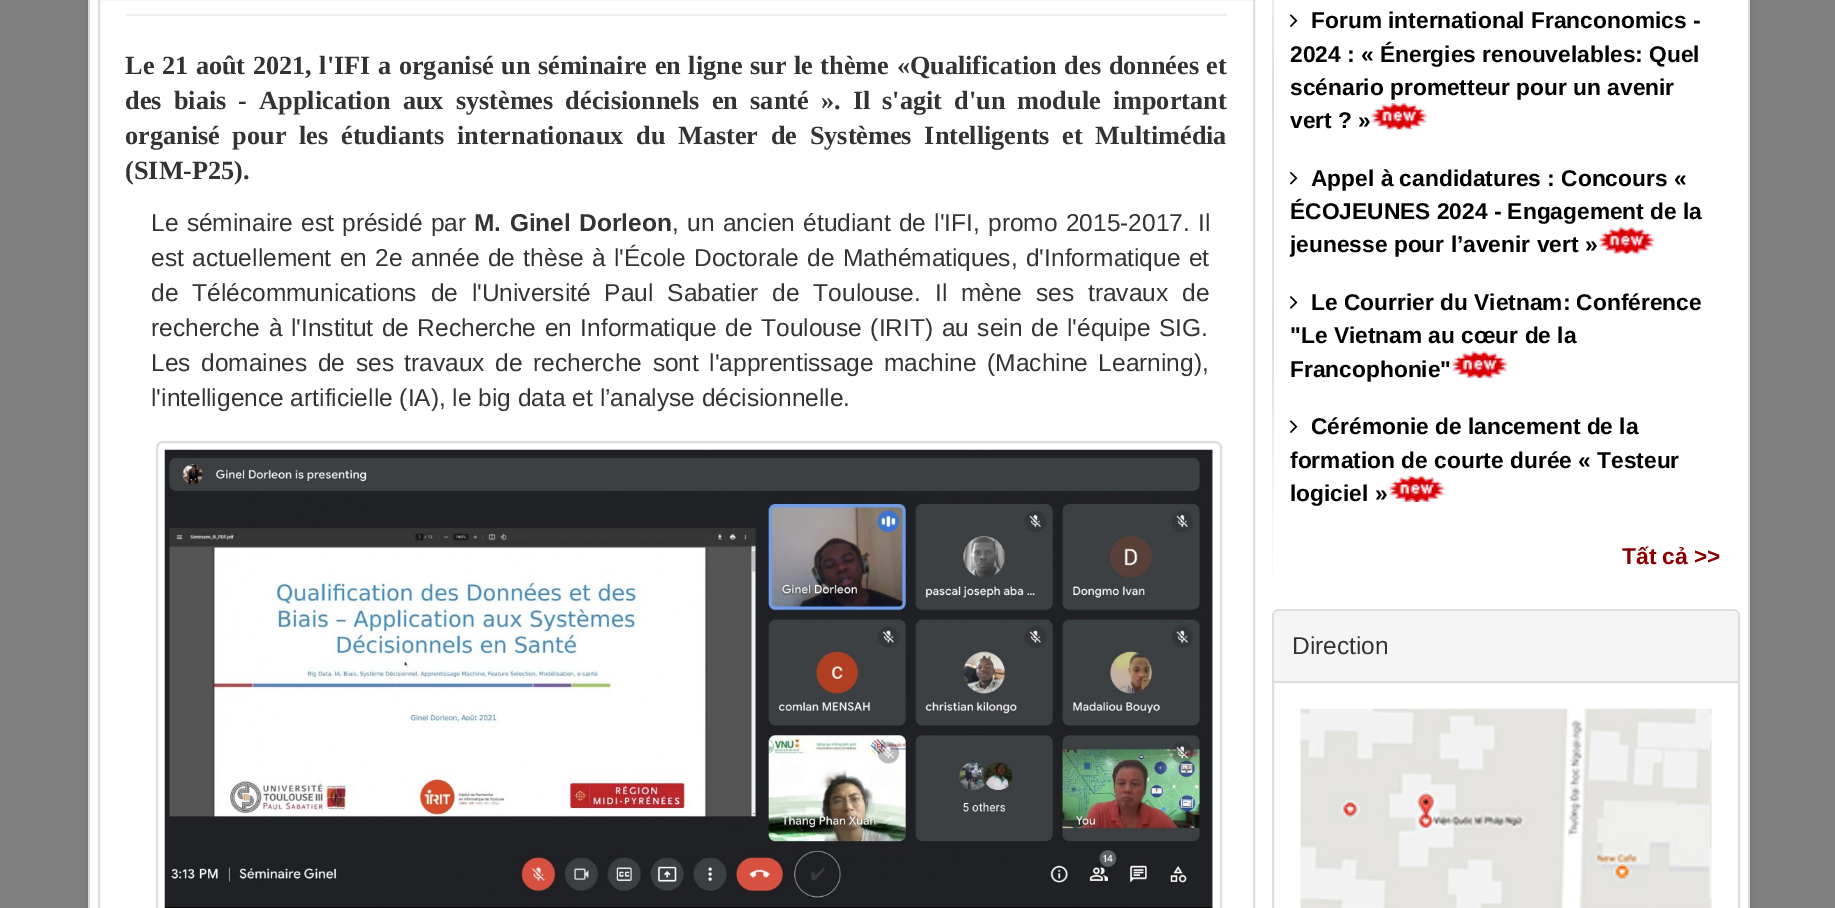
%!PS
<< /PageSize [1835 908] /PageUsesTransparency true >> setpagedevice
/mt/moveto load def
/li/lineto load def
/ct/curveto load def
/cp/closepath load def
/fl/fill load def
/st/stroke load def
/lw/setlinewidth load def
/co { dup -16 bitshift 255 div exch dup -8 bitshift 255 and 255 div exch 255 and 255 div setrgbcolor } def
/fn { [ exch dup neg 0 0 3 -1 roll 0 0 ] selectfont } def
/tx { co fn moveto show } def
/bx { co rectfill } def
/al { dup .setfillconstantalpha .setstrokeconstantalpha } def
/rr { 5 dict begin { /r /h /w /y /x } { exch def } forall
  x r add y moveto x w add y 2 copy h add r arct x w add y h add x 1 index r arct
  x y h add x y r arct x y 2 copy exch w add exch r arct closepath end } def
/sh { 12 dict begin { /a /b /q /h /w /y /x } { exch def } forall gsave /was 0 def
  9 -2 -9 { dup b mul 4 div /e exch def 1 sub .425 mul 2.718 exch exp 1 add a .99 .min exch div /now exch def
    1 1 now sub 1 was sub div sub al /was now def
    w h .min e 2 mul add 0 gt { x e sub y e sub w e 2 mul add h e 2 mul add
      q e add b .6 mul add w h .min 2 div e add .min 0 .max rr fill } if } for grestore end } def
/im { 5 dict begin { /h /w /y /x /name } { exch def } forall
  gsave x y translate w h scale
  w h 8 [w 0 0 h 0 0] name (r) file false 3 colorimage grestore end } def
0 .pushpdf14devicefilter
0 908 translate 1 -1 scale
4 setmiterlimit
0 0 1835 908 16#808080 bx
16#000000 co
88 -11 1662 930 0 3.5 .15 sh
90 0 1658 908 16#FFFFFF bx
1748 0 2 908 16#DADADA bx
88 0 2 908 16#DADADA bx
16#DDDDDD co
2 lw
99 -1 1155 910 rectstroke
126 14 1101 2 16#EEEEEE bx
16#DDDDDD co
157 442 1064 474 6 rr st
(media/1.raw) 164 449 1049 459 im
(media/2.raw) 1272 0 2 574 im
(media/3.raw) 1290 14 8 13 im
(media/4.raw) 1371 103 56 27 im
(media/5.raw) 1290 171 8 14 im
(media/6.raw) 1599 227 56 27 im
(media/7.raw) 1290 296 8 13 im
(media/8.raw) 1452 351 56 27 im
(media/3.raw) 1290 420 8 13 im
(media/9.raw) 1389 475 56 27 im
1273 610 466 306 6 rr st
16#F5F5F5 co
1279 611 mt 1733 611 li 1736 611 1738 613 1738 616 ct 1738 683 li 1274 683 li 1274 616 li 1274 613 1276 611 1279 611 ct cp fl
1274 681 464 2 16#DDDDDD bx
(media/10.raw) 1300 708 410 200 im
(media/11.raw) 1709 708 3 200 im
/LiberationSerif-Bold 26.25 fn
16#333333 co
125 74 mt 1 0 32 (Le 21 août 2021, l'IFI a organisé un séminaire en ligne sur le thème «Qualification des données et) widthshow
125 109 mt 5.6 0 32 (des biais - Application aux systèmes décisionnels en santé ». Il s'agit d'un module important) widthshow
125 144 mt 6.1 0 32 (organisé pour les étudiants internationaux du Master de Systèmes Intelligents et Multimédia) widthshow
(\(SIM-P25\).) 125 179 /LiberationSerif-Bold 26.25 16#333333 tx
/LiberationSans-Regular 24.5 fn
151 231 mt 1.5 0 32 (Le séminaire est présidé par) widthshow
/LiberationSans-Bold 24.5 fn
474 231 mt 1.5 0 32 (M. Ginel Dorleon) widthshow
/LiberationSans-Regular 24.5 fn
672 231 mt 1.5 0 32 (, un ancien étudiant de l'IFI, promo 2015-2017. Il) widthshow
151 266 mt 1.7 0 32 (est actuellement en 2e année de thèse à l'École Doctorale de Mathématiques, d'Informatique et) widthshow
151 301 mt 7 0 32 (de Télécommunications de l'Université Paul Sabatier de Toulouse. Il mène ses travaux de) widthshow
151 336 mt 1.8 0 32 (recherche à l'Institut de Recherche en Informatique de Toulouse \(IRIT\) au sein de l'équipe SIG.) widthshow
151 371 mt 3.75 0 32 (Les domaines de ses travaux de recherche sont l'apprentissage machine \(Machine Learning\),) widthshow
(l'intelligence artificielle \(IA\), le big data et l’analyse décisionnelle.) 151 406 /LiberationSans-Regular 24.5 16#333333 tx
(Forum international Franconomics -) 1311 28 /LiberationSans-Bold 22.75 16#000000 tx
(2024 : « Énergies renouvelables: Quel) 1290 62 /LiberationSans-Bold 22.75 16#000000 tx
(scénario prometteur pour un avenir) 1290 95 /LiberationSans-Bold 22.75 16#000000 tx
(vert ? ») 1290 128 /LiberationSans-Bold 22.75 16#000000 tx
(Appel à candidatures : Concours «) 1311 186 /LiberationSans-Bold 22.75 16#000000 tx
(ÉCOJEUNES 2024 - Engagement de la) 1290 219 /LiberationSans-Bold 22.75 16#000000 tx
(jeunesse pour l’avenir vert ») 1290 252 /LiberationSans-Bold 22.75 16#000000 tx
(Le Courrier du Vietnam: Conférence) 1311 310 /LiberationSans-Bold 22.75 16#000000 tx
("Le Vietnam au cœur de la) 1290 343 /LiberationSans-Bold 22.75 16#000000 tx
(Francophonie") 1290 377 /LiberationSans-Bold 22.75 16#000000 tx
(Cérémonie de lancement de la) 1311 434 /LiberationSans-Bold 22.75 16#000000 tx
(formation de courte durée « Testeur) 1290 468 /LiberationSans-Bold 22.75 16#000000 tx
(logiciel ») 1290 501 /LiberationSans-Bold 22.75 16#000000 tx
(Tất cả >>) 1622 564 /LiberationSans-Bold 22.75 16#880000 tx
(Direction) 1292 654 /LiberationSans-Regular 24.5 16#333333 tx
.poppdf14devicefilter showpage
